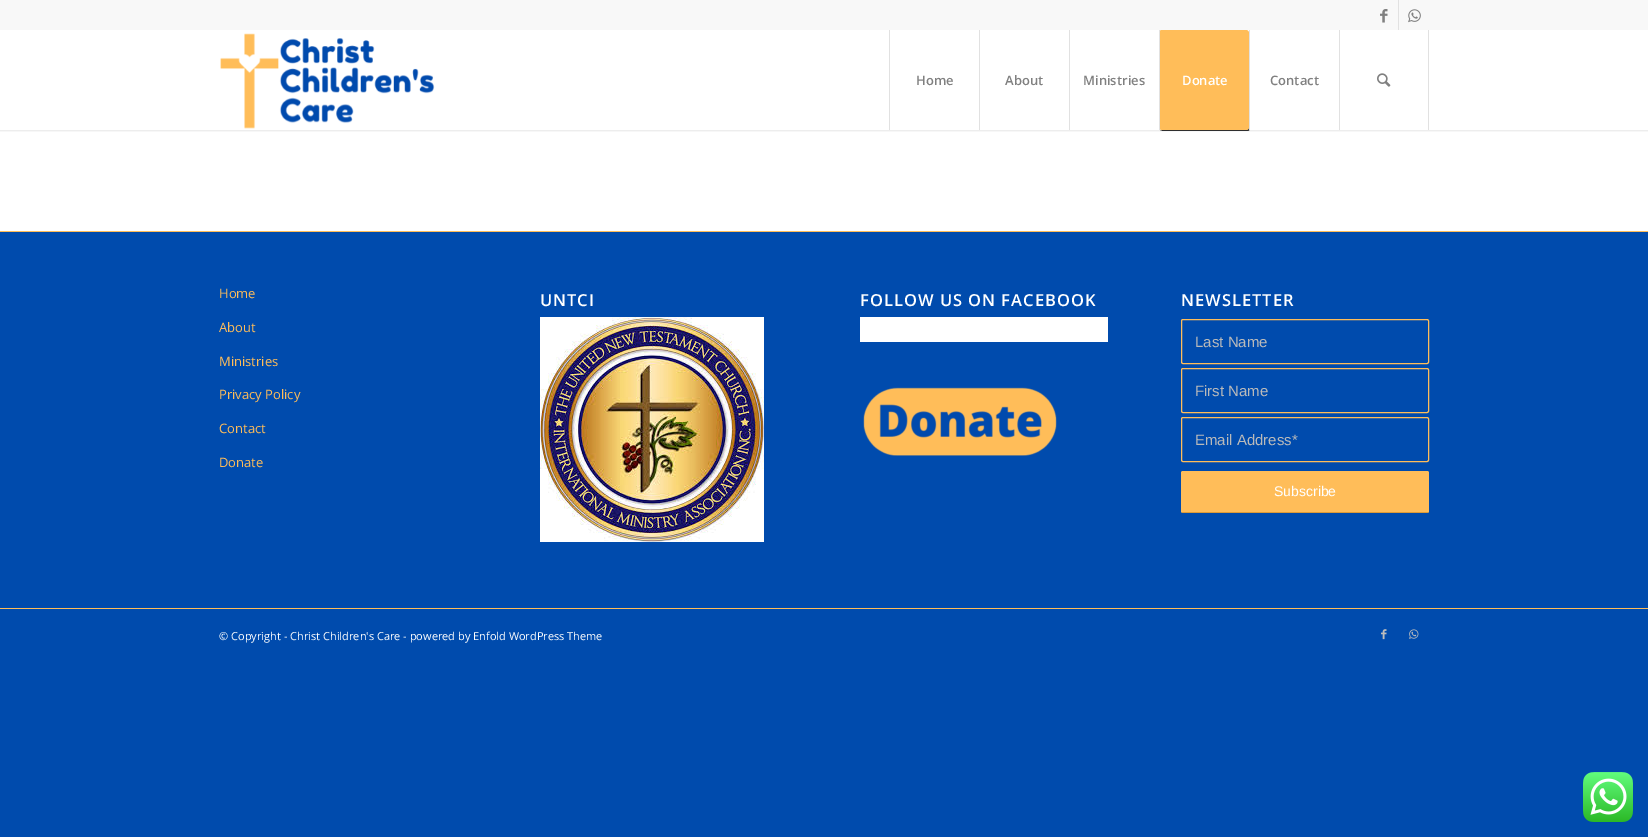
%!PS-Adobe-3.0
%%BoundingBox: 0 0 1648 837
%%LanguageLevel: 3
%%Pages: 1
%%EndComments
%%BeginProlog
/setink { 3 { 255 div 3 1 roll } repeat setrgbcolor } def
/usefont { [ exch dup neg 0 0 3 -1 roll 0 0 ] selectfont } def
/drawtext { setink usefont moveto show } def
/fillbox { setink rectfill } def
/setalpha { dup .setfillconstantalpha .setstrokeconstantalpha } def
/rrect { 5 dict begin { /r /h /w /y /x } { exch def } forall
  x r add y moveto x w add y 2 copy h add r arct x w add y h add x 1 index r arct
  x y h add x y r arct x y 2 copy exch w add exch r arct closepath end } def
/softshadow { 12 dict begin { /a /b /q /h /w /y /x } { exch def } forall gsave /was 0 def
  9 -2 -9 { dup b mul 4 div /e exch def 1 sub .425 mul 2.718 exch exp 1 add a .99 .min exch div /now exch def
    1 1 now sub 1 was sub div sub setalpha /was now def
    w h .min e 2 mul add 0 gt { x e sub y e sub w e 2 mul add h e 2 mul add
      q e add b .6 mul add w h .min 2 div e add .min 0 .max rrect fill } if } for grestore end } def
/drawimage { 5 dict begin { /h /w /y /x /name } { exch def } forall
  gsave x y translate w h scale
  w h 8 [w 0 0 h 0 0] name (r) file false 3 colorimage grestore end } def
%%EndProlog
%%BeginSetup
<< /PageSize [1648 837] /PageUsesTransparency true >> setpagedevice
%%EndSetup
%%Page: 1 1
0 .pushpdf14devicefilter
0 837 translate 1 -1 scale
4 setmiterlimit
0 0 1648 837 0 75 173 fillbox
0 30 1648 201 255 255 255 fillbox
gsave
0 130 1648 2 rectclip
0 0 0 setink
-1 -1 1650 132 0 1 0.1 softshadow
grestore
0 0 1648 30 248 248 248 fillbox
1398 0 1 30 225 225 225 fillbox
(assets/img1.rgb) 1380 9 8 14 drawimage
(assets/img2.rgb) 1408 9 13 14 drawimage
(assets/img3.rgb) 220 33 215 96 drawimage
889 30 1 100 225 225 225 fillbox
(Home) 916 85 /OpenSans-SemiBold 13 128 128 128 drawtext
979 30 1 100 225 225 225 fillbox
(About) 1005 85 /OpenSans-SemiBold 13 128 128 128 drawtext
1069 30 1 100 225 225 225 fillbox
(Ministries) 1083 85 /OpenSans-SemiBold 13 128 128 128 drawtext
47 47 47 setink
1160 130 moveto 1161 130 1162 131 1163 131 curveto 1247 131 lineto 1249 131 1250 130 1250 128 curveto 1250 34 lineto 1250 33 1249 32 1249 31 curveto 1249 33 lineto 1249 127 lineto 1249 129 1248 130 1246 130 curveto 1162 130 lineto closepath fill
255 189 89 setink
1159 30 90 100 3 rrect fill
1159 30 1 100 225 225 225 fillbox
(Donate) 1182 85 /OpenSans-SemiBold 13 255 255 255 drawtext
1249 30 1 100 225 225 225 fillbox
(Contact) 1270 85 /OpenSans-SemiBold 13 128 128 128 drawtext
1428 30 1 100 225 225 225 fillbox
1339 30 1 100 225 225 225 fillbox
(assets/img4.rgb) 1377 73 14 14 drawimage
0 231 1648 1 255 189 89 fillbox
(Home) 219 298 /OpenSans-Regular 13 255 189 89 drawtext
(About) 219 332 /OpenSans-Regular 13 255 189 89 drawtext
(Ministries) 219 366 /OpenSans-Regular 13 255 189 89 drawtext
(Privacy Policy) 219 399 /OpenSans-Regular 13 255 189 89 drawtext
(Contact) 219 433 /OpenSans-Regular 13 255 189 89 drawtext
(Donate) 219 467 /OpenSans-Regular 13 255 189 89 drawtext
/OpenSans-SemiBold 16.5 usefont
255 255 255 setink
540 306 moveto 1 0 (UNTCI) ashow
(assets/img5.rgb) 540 317 224 225 drawimage
860 306 moveto 1 0 (FOLLOW US ON FACEBOOK) ashow
860 317 248 25 255 255 255 fillbox
(assets/img6.rgb) 863 387 194 69 drawimage
1181 306 moveto 1 0 (NEWSLETTER) ashow
255 189 89 setink
1181.5 319.5 247 44 1.5 rrect stroke
(Last Name) 1195 347 /LiberationSans-Regular 15 186 186 186 drawtext
255 189 89 setink
1181.5 368.5 247 44 1.5 rrect stroke
(First Name) 1195 396 /LiberationSans-Regular 15 186 186 186 drawtext
255 189 89 setink
1181.5 417.5 247 44 1.5 rrect stroke
(Email Address*) 1195 445 /LiberationSans-Regular 15 186 186 186 drawtext
255 189 89 setink
1181 471 248 42 2 rrect fill
1182 512 246 1 221 155 55 fillbox
(Subscribe) 1274 496 /LiberationSans-Regular 14 255 255 255 drawtext
0 608 1648 1 255 189 89 fillbox
(© Copyright - Christ Children's Care - powered by Enfold WordPress Theme) 219 640 /OpenSans-Regular 11 255 255 255 drawtext
(assets/img7.rgb) 1381 629 6 11 drawimage
(assets/img8.rgb) 1409 629 10 10 drawimage
(assets/img9.rgb) 1583 772 50 50 drawimage
.poppdf14devicefilter showpage
%%EOF
